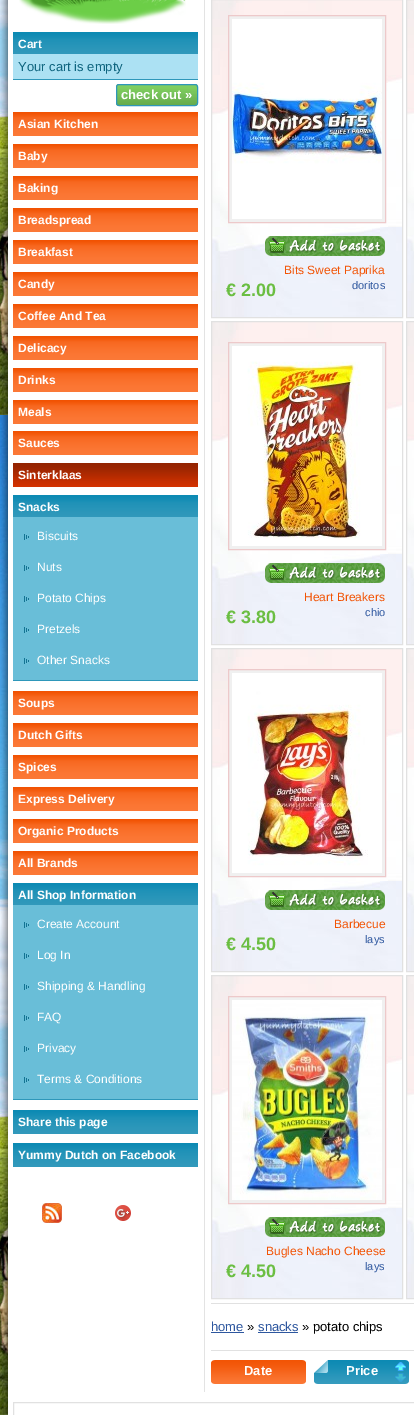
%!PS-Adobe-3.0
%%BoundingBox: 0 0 414 1415
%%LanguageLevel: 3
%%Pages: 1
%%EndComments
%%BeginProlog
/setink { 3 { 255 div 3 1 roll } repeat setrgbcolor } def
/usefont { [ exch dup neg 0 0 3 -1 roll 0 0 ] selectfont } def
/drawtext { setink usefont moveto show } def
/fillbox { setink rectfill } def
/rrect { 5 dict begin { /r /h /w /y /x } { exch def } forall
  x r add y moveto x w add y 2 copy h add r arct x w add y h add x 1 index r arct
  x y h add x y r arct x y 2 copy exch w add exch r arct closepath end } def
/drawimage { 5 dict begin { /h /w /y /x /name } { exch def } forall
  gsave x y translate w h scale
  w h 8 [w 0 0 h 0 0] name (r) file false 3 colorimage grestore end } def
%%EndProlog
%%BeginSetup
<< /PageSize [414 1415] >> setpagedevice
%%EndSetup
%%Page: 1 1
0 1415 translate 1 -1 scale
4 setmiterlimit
0 0 414 1415 255 255 255 fillbox
(assets/img1.rgb) 0 0 8 1415 drawimage
(assets/img2.rgb) 1 0 7 1415 drawimage
(assets/img3.rgb) 19 0 167 24 drawimage
(assets/img4.rgb) 13 32 185 22 drawimage
(Cart) 18 48 /LiberationSans-Bold 12 255 255 255 drawtext
13 54 185 25 172 225 243 fillbox
13 79 185 1 46 151 186 fillbox
(Your cart is empty) 18 71 /LiberationSans-Regular 13 15 101 127 drawtext
(assets/img5.rgb) 116 84 82 22 drawimage
46 151 186 setink
116.5 84.5 81 21 2.5 rrect stroke
(check out ») 121 99 /LiberationSans-Bold 13 255 255 255 drawtext
(assets/img6.rgb) 13 112 185 24 drawimage
(Asian Kitchen) 18 128 /LiberationSans-Bold 12 255 255 255 drawtext
(assets/img6.rgb) 13 144 185 24 drawimage
(Baby) 18 160 /LiberationSans-Bold 12 255 255 255 drawtext
(assets/img6.rgb) 13 176 185 24 drawimage
(Baking) 18 192 /LiberationSans-Bold 12 255 255 255 drawtext
(assets/img6.rgb) 13 208 185 24 drawimage
(Breadspread) 18 224 /LiberationSans-Bold 12 255 255 255 drawtext
(assets/img6.rgb) 13 240 185 24 drawimage
(Breakfast) 18 256 /LiberationSans-Bold 12 255 255 255 drawtext
(assets/img6.rgb) 13 272 185 24 drawimage
(Candy) 18 288 /LiberationSans-Bold 12 255 255 255 drawtext
(assets/img6.rgb) 13 304 185 24 drawimage
(Coffee And Tea) 18 320 /LiberationSans-Bold 12 255 255 255 drawtext
(assets/img6.rgb) 13 336 185 24 drawimage
(Delicacy) 18 352 /LiberationSans-Bold 12 255 255 255 drawtext
(assets/img6.rgb) 13 368 185 24 drawimage
(Drinks) 18 384 /LiberationSans-Bold 12 255 255 255 drawtext
(assets/img6.rgb) 13 400 185 24 drawimage
(Meals) 18 416 /LiberationSans-Bold 12 255 255 255 drawtext
(assets/img6.rgb) 13 431 185 24 drawimage
(Sauces) 18 447 /LiberationSans-Bold 12 255 255 255 drawtext
(assets/img7.rgb) 13 463 185 24 drawimage
(Sinterklaas) 18 479 /LiberationSans-Bold 12 255 255 255 drawtext
(assets/img4.rgb) 13 495 185 22 drawimage
(Snacks) 18 511 /LiberationSans-Bold 12 255 255 255 drawtext
13 517 185 163 105 190 216 fillbox
13 680 185 1 46 151 186 fillbox
(assets/img8.rgb) 24 534 5 6 drawimage
(Biscuits) 37 540 /LiberationSans-Regular 12 255 255 255 drawtext
(assets/img8.rgb) 24 565 5 6 drawimage
(Nuts) 37 571 /LiberationSans-Regular 12 255 255 255 drawtext
(assets/img8.rgb) 24 596 5 6 drawimage
(Potato Chips) 37 602 /LiberationSans-Regular 12 255 255 255 drawtext
(assets/img8.rgb) 24 627 5 6 drawimage
(Pretzels) 37 633 /LiberationSans-Regular 12 255 255 255 drawtext
(assets/img8.rgb) 24 658 5 6 drawimage
(Other Snacks) 37 664 /LiberationSans-Regular 12 255 255 255 drawtext
(assets/img6.rgb) 13 691 185 24 drawimage
(Soups) 18 707 /LiberationSans-Bold 12 255 255 255 drawtext
(assets/img6.rgb) 13 723 185 24 drawimage
(Dutch Gifts) 18 739 /LiberationSans-Bold 12 255 255 255 drawtext
(assets/img6.rgb) 13 755 185 24 drawimage
(Spices) 18 771 /LiberationSans-Bold 12 255 255 255 drawtext
(assets/img6.rgb) 13 787 185 24 drawimage
(Express Delivery) 18 803 /LiberationSans-Bold 12 255 255 255 drawtext
(assets/img6.rgb) 13 819 185 24 drawimage
(Organic Products) 18 835 /LiberationSans-Bold 12 255 255 255 drawtext
(assets/img6.rgb) 13 851 185 24 drawimage
(All Brands) 18 867 /LiberationSans-Bold 12 255 255 255 drawtext
(assets/img4.rgb) 13 883 185 22 drawimage
(All Shop Information) 18 899 /LiberationSans-Bold 12 255 255 255 drawtext
13 905 185 194 105 190 216 fillbox
13 1099 185 1 46 151 186 fillbox
(assets/img8.rgb) 24 922 5 6 drawimage
(Create Account) 37 928 /LiberationSans-Regular 12 255 255 255 drawtext
(assets/img8.rgb) 24 953 5 6 drawimage
(Log In) 37 959 /LiberationSans-Regular 12 255 255 255 drawtext
(assets/img8.rgb) 24 984 5 6 drawimage
(Shipping & Handling) 37 990 /LiberationSans-Regular 12 255 255 255 drawtext
(assets/img8.rgb) 24 1015 5 6 drawimage
(FAQ) 37 1021 /LiberationSans-Regular 12 255 255 255 drawtext
(assets/img8.rgb) 24 1046 5 6 drawimage
(Privacy) 37 1052 /LiberationSans-Regular 12 255 255 255 drawtext
(assets/img8.rgb) 24 1077 5 6 drawimage
(Terms & Conditions) 37 1083 /LiberationSans-Regular 12 255 255 255 drawtext
(assets/img9.rgb) 13 1110 185 24 drawimage
(Share this page) 18 1126 /LiberationSans-Bold 12 255 255 255 drawtext
(assets/img9.rgb) 13 1143 185 24 drawimage
(Yummy Dutch on Facebook) 18 1159 /LiberationSans-Bold 12 255 255 255 drawtext
(assets/img10.rgb) 42 1203 20 20 drawimage
(assets/img11.rgb) 115 1205 16 16 drawimage
204 0 1 1392 227 227 227 fillbox
(assets/img12.rgb) 212 0 190 317 drawimage
225 225 225 setink
211.5 -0.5 191 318 rectstroke
240 240 240 setink
228.5 15.5 moveto 385.5 15.5 lineto 385.5 222.5 lineto 228.5 222.5 lineto closepath gsave fill grestore
237 201 202 setink
stroke
(assets/img13.rgb) 232 19 150 200 drawimage
(assets/img14.rgb) 265 236 120 20 drawimage
(€ 2.00) 226 296 /LiberationSans-Bold 18 107 190 66 drawtext
(Bits Sweet Paprika) 284 274 /LiberationSans-Regular 12 242 84 5 drawtext
(doritos) 352 289 /LiberationSans-Regular 11 46 87 159 drawtext
(assets/img15.rgb) 407 0 7 317 drawimage
225 225 225 setink
406.5 -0.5 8 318 rectstroke
(assets/img16.rgb) 212 322 190 322 drawimage
211.5 321.5 191 323 rectstroke
240 240 240 setink
228.5 342.5 moveto 385.5 342.5 lineto 385.5 549.5 lineto 228.5 549.5 lineto closepath gsave fill grestore
237 201 202 setink
stroke
(assets/img17.rgb) 232 346 150 200 drawimage
(assets/img14.rgb) 265 563 120 20 drawimage
(€ 3.80) 226 623 /LiberationSans-Bold 18 107 190 66 drawtext
(Heart Breakers) 304 601 /LiberationSans-Regular 12 242 84 5 drawtext
(chio) 365 616 /LiberationSans-Regular 11 46 87 159 drawtext
(assets/img18.rgb) 407 322 7 322 drawimage
225 225 225 setink
406.5 321.5 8 323 rectstroke
(assets/img16.rgb) 212 649 190 322 drawimage
211.5 648.5 191 323 rectstroke
240 240 240 setink
228.5 669.5 moveto 385.5 669.5 lineto 385.5 876.5 lineto 228.5 876.5 lineto closepath gsave fill grestore
237 201 202 setink
stroke
(assets/img19.rgb) 232 673 150 200 drawimage
(assets/img14.rgb) 265 890 120 20 drawimage
(€ 4.50) 226 950 /LiberationSans-Bold 18 107 190 66 drawtext
(Barbecue) 334 928 /LiberationSans-Regular 12 242 84 5 drawtext
(lays) 365 943 /LiberationSans-Regular 11 46 87 159 drawtext
(assets/img18.rgb) 407 649 7 322 drawimage
225 225 225 setink
406.5 648.5 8 323 rectstroke
(assets/img16.rgb) 212 976 190 322 drawimage
211.5 975.5 191 323 rectstroke
240 240 240 setink
228.5 996.5 moveto 385.5 996.5 lineto 385.5 1203.5 lineto 228.5 1203.5 lineto closepath gsave fill grestore
237 201 202 setink
stroke
(assets/img20.rgb) 232 1000 150 200 drawimage
(assets/img14.rgb) 265 1217 120 20 drawimage
(€ 4.50) 226 1277 /LiberationSans-Bold 18 107 190 66 drawtext
(Bugles Nacho Cheese) 266 1255 /LiberationSans-Regular 12 242 84 5 drawtext
(lays) 365 1270 /LiberationSans-Regular 11 46 87 159 drawtext
(assets/img18.rgb) 407 976 7 322 drawimage
225 225 225 setink
406.5 975.5 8 323 rectstroke
211 1303 203 1 225 225 225 fillbox
(home) 211 1331 /LiberationSans-Regular 13 46 87 159 drawtext
211 1332 33 1 46 87 159 fillbox
(») 247 1331 /LiberationSans-Regular 13 0 0 0 drawtext
(snacks) 258 1331 /LiberationSans-Regular 13 46 87 159 drawtext
258 1332 40 1 46 87 159 fillbox
(» potato chips) 302 1331 /LiberationSans-Regular 13 0 0 0 drawtext
211 1350 203 1 225 225 225 fillbox
(assets/img21.rgb) 211 1360 95 24 drawimage
(Date) 244 1375 /LiberationSans-Bold 13 255 255 255 drawtext
(assets/img22.rgb) 314 1360 95 24 drawimage
(Price) 346 1375 /LiberationSans-Bold 13 255 255 255 drawtext
225 225 225 setink
13.5 1402.5 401 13 rectstroke
showpage
%%EOF
